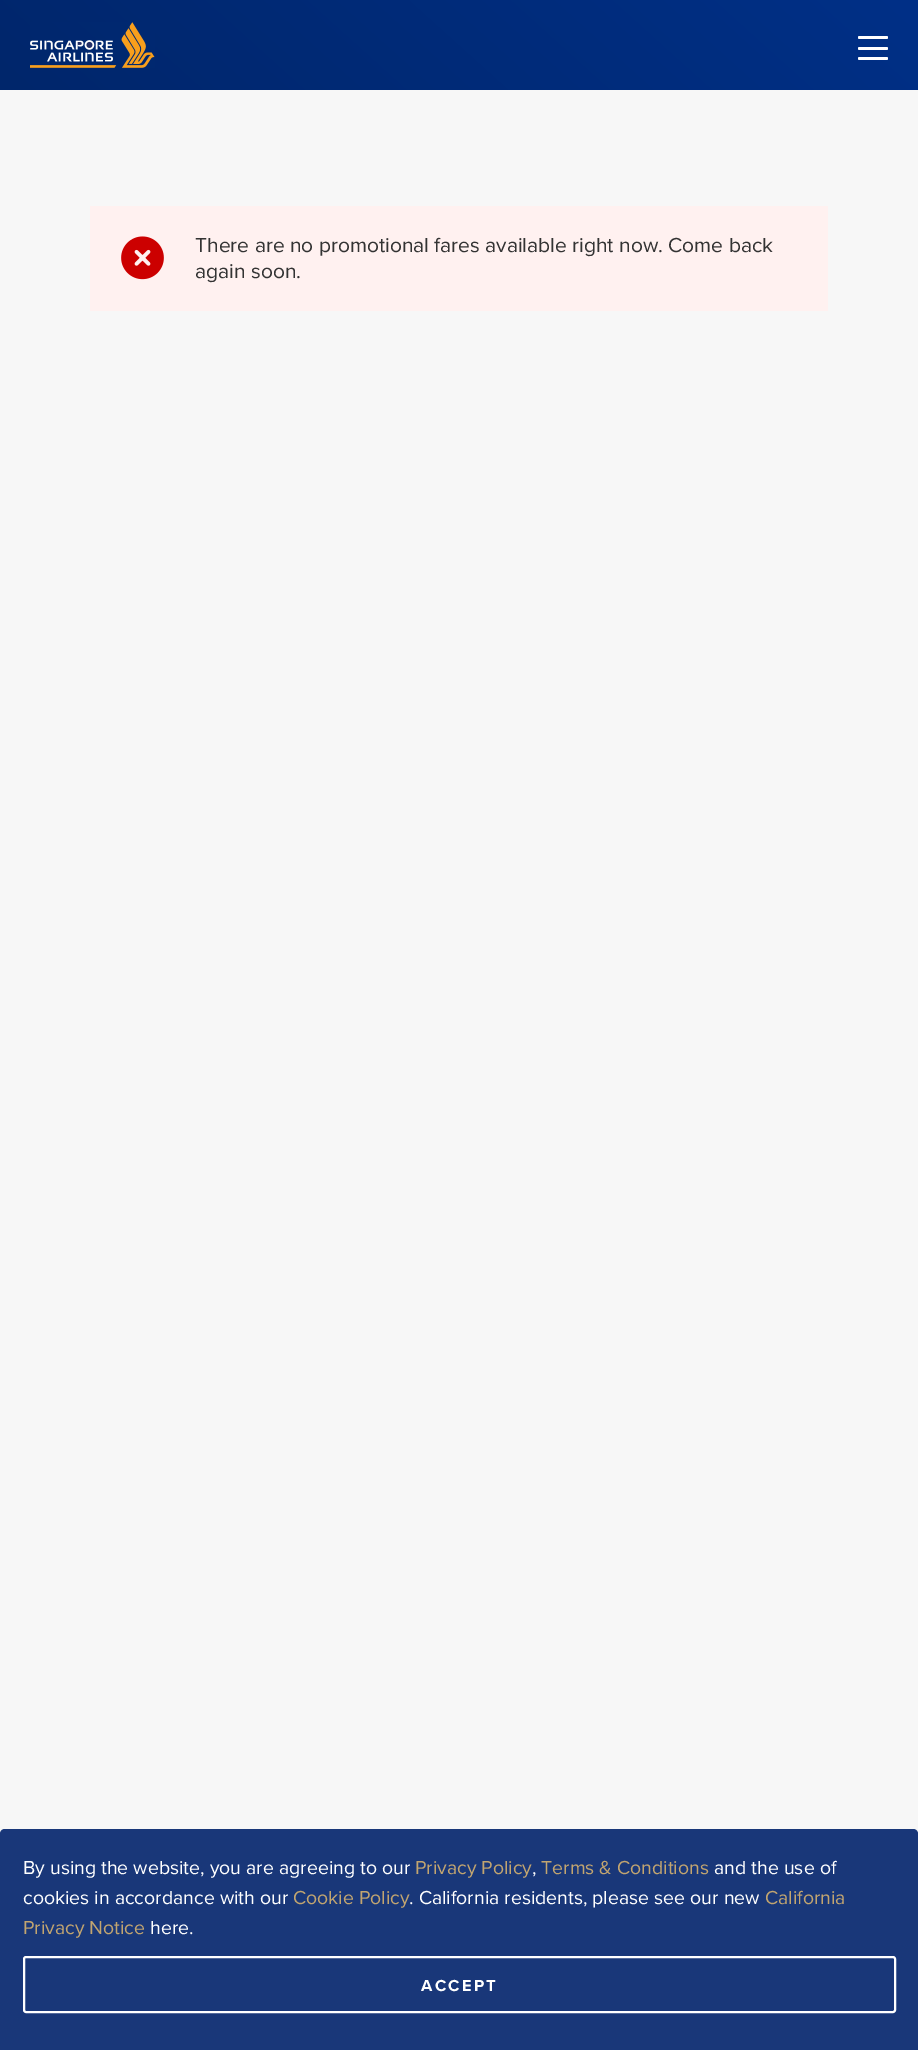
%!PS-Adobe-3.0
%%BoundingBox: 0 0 918 2050
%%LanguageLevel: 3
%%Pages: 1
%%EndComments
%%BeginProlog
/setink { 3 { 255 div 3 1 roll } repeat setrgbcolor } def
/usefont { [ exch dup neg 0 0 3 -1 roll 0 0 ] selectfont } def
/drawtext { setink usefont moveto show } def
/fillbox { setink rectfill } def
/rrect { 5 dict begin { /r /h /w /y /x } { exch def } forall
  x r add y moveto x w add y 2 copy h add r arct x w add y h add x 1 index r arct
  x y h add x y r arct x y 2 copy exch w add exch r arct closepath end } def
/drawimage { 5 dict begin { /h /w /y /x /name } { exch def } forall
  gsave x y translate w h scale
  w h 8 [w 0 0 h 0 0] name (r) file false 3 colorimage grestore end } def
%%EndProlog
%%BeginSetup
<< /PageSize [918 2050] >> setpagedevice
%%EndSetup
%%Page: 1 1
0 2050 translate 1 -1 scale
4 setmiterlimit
0 0 918 2050 247 247 247 fillbox
90 206 738 105 255 241 240 fillbox
(assets/img1.rgb) 121 236 43 44 drawimage
(There are no promotional fares available right now. Come back) 195 252 /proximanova-Regular 21 51 51 51 drawtext
(again soon.) 195 278 /proximanova-Regular 21 51 51 51 drawtext
gsave 0 0 moveto 918 0 lineto 918 90 lineto 0 90 lineto closepath clip newpath
<< /ShadingType 2 /ColorSpace /DeviceRGB /Coords [687 -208 231 298] /Extend [true true] /Function << /FunctionType 2 /Domain [0 1] /C0 [0 0.188 0.529] /C1 [0 0.149 0.42] /N 1 >> >> shfill grestore
(assets/img2.rgb) 30 22 125 46 drawimage
255 255 255 setink
858 47 30 3 1.5 rrect fill
858 36 30 3 1.5 rrect fill
858 57 30 3 1.5 rrect fill
25 55 121 setink
5 1829 moveto 913 1829 lineto 916 1829 918 1831 918 1834 curveto 918 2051 lineto 0 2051 lineto 0 1834 lineto 0 1831 2 1829 5 1829 curveto closepath fill
(By using the website, you are agreeing to our) 23 1874 /proximanova-Regular 19.5 255 255 255 drawtext
(Privacy Policy) 415 1874 /proximanova-Regular 19.5 194 165 112 drawtext
(,) 532 1874 /proximanova-Regular 19.5 255 255 255 drawtext
(Terms & Conditions) 541 1874 /proximanova-Regular 19.5 194 165 112 drawtext
(and the use of) 714 1874 /proximanova-Regular 19.5 255 255 255 drawtext
(cookies in accordance with our) 23 1904 /proximanova-Regular 19.5 255 255 255 drawtext
(Cookie Policy) 293 1904 /proximanova-Regular 19.5 194 165 112 drawtext
(. California residents, please see our new) 409 1904 /proximanova-Regular 19.5 255 255 255 drawtext
(California) 765 1904 /proximanova-Regular 19.5 194 165 112 drawtext
(Privacy Notice) 23 1934 /proximanova-Regular 19.5 194 165 112 drawtext
(here.) 150 1934 /proximanova-Regular 19.5 255 255 255 drawtext
2 setlinewidth
24 1957 871 55 2 rrect stroke
/ProximaNova-Bold 16.5 usefont
421 1991 moveto 2.25 0 (ACCEPT) ashow
showpage
%%EOF
